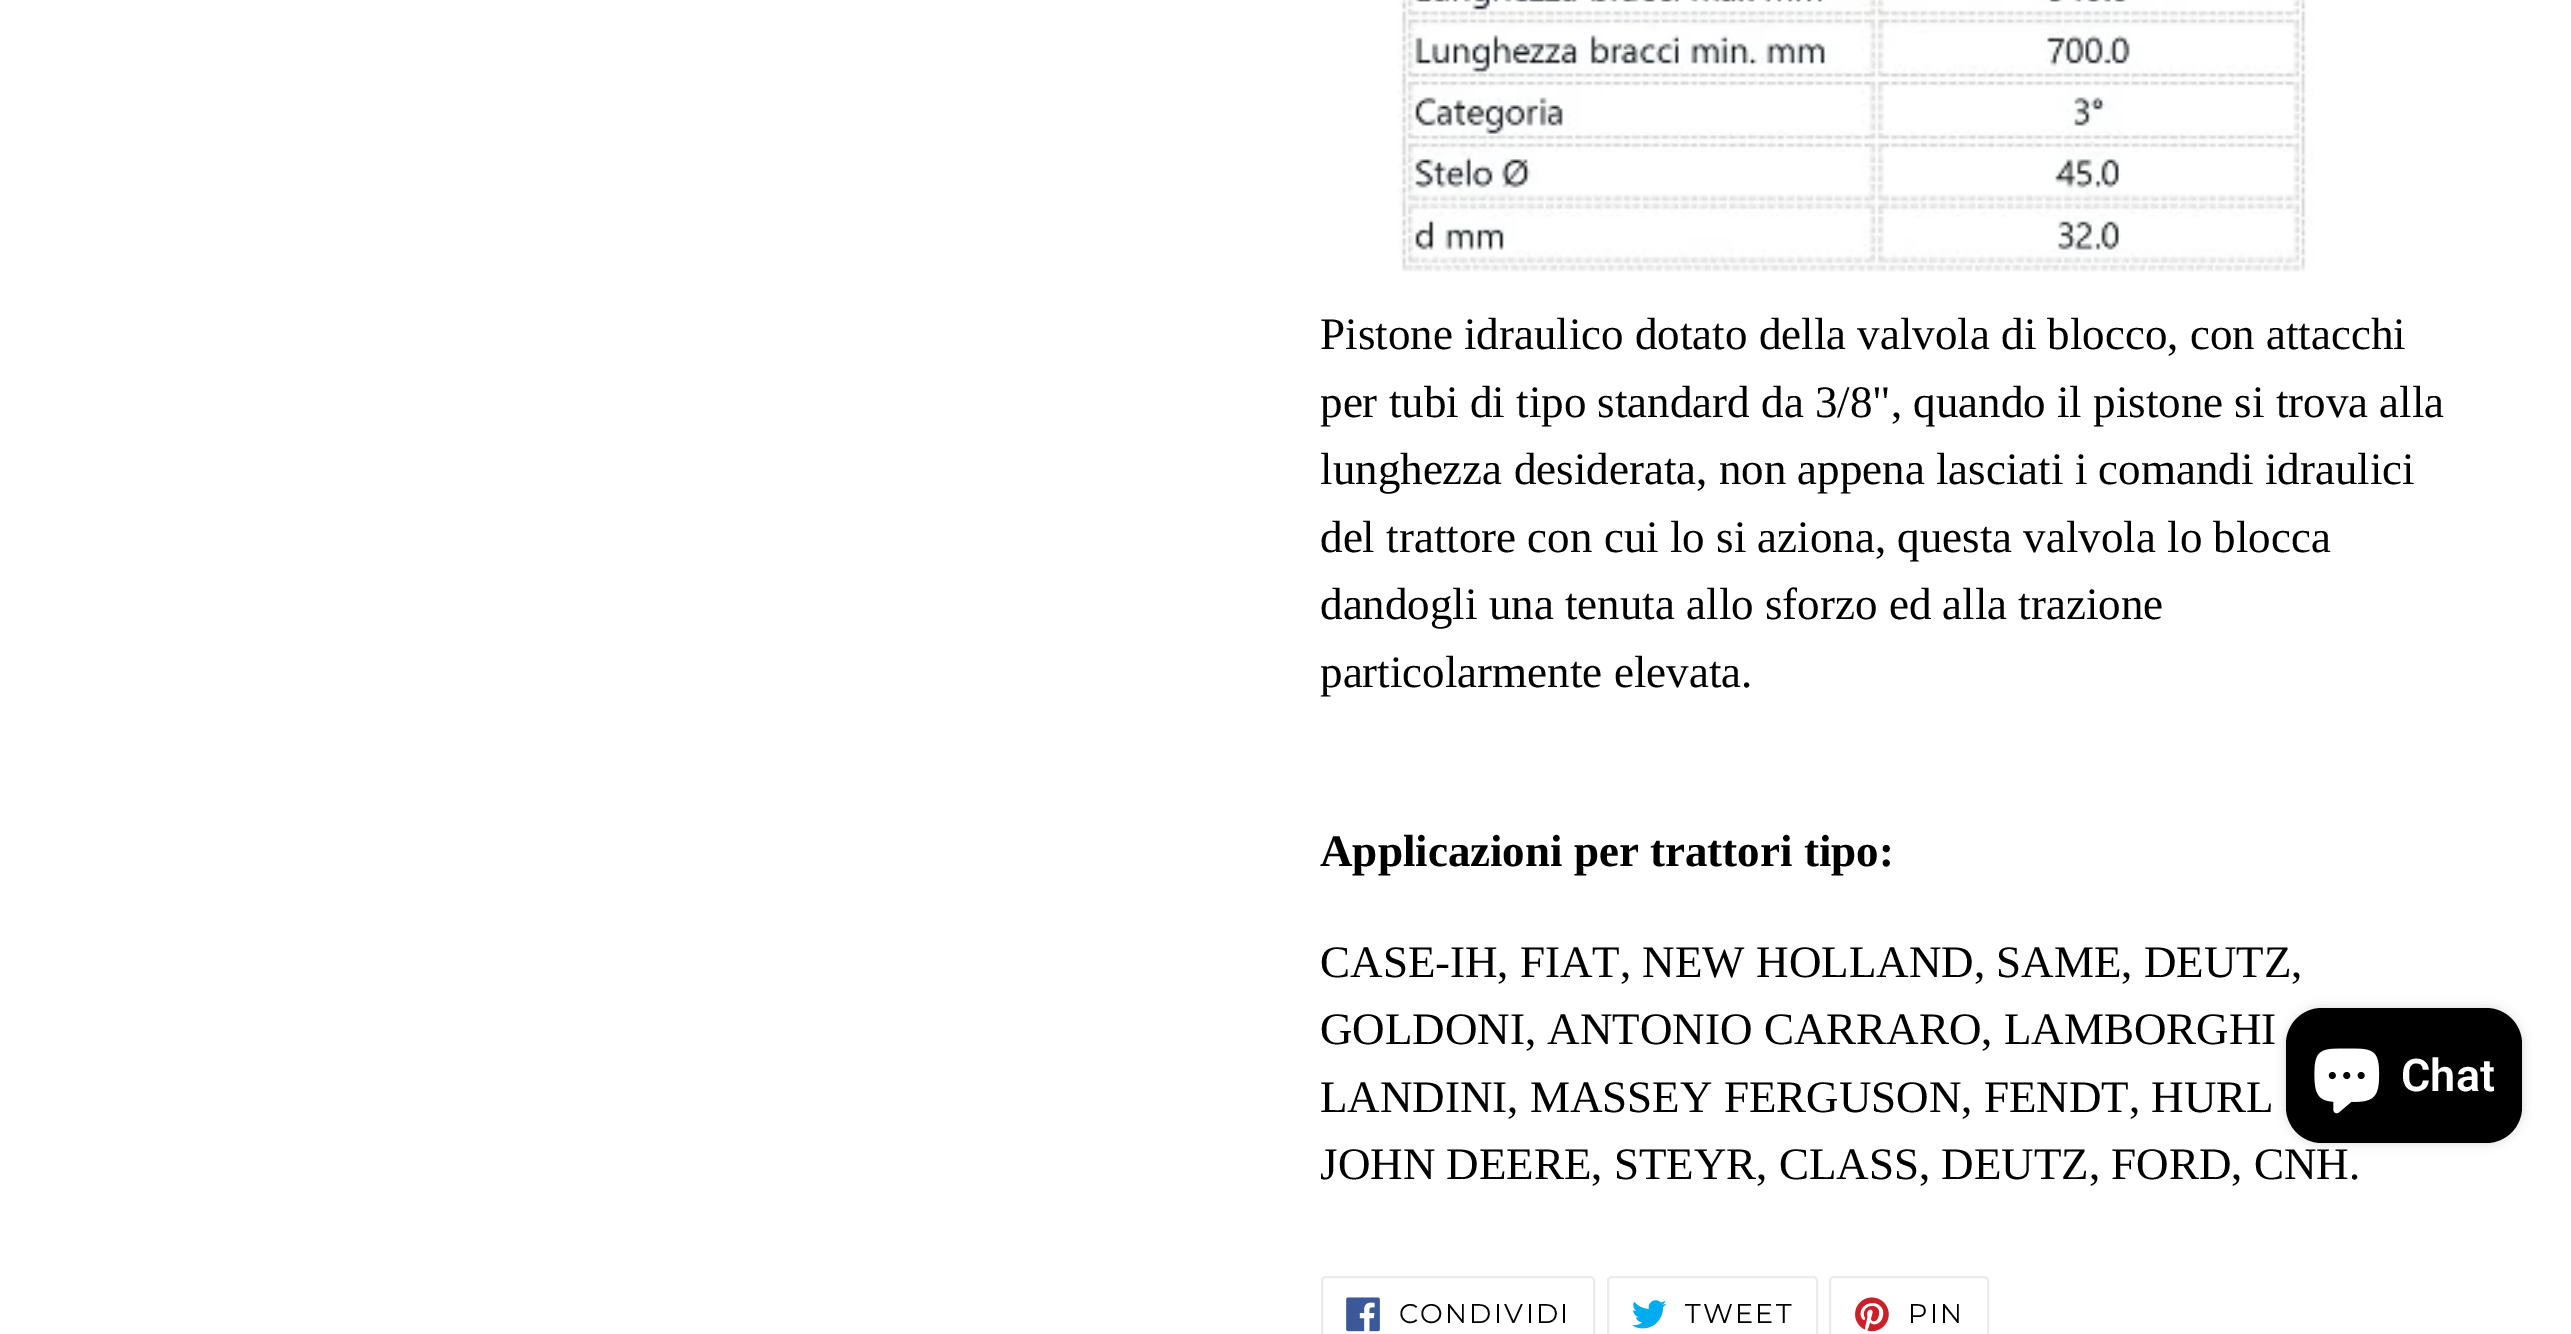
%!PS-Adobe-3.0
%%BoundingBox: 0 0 2571 1334
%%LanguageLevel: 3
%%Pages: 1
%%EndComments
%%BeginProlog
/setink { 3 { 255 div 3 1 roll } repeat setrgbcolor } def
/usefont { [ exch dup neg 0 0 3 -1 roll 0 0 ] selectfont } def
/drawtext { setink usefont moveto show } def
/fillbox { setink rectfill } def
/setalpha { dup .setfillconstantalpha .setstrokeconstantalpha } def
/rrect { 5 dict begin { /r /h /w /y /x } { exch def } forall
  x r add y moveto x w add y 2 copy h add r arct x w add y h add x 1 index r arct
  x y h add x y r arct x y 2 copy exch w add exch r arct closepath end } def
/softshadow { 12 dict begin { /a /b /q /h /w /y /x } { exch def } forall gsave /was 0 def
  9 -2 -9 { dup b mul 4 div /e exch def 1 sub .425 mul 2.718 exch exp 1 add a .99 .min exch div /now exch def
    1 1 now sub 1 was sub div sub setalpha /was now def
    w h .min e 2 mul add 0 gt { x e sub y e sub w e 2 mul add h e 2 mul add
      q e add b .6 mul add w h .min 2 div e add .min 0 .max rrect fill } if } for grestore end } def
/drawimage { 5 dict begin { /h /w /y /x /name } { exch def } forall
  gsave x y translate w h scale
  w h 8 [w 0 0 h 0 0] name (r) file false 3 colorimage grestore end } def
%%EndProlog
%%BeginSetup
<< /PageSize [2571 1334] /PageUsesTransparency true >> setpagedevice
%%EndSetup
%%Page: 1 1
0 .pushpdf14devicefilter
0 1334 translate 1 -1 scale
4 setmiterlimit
0 0 2571 1334 255 255 255 fillbox
(assets/img1.rgb) 1398 0 916 272 drawimage
(Pistone idraulico dotato della valvola di blocco, con attacchi) 1320 349 /LiberationSerif-Regular 45 0 0 0 drawtext
(per tubi di tipo standard da 3/8", quando il pistone si trova alla) 1320 417 /LiberationSerif-Regular 45 0 0 0 drawtext
(lunghezza desiderata, non appena lasciati i comandi idraulici) 1320 484 /LiberationSerif-Regular 45 0 0 0 drawtext
(del trattore con cui lo si aziona, questa valvola lo blocca) 1320 552 /LiberationSerif-Regular 45 0 0 0 drawtext
(dandogli una tenuta allo sforzo ed alla trazione) 1320 619 /LiberationSerif-Regular 45 0 0 0 drawtext
(particolarmente elevata.) 1320 687 /LiberationSerif-Regular 45 0 0 0 drawtext
(Applicazioni per trattori tipo:) 1320 866 /LiberationSerif-Bold 45 0 0 0 drawtext
(CASE-IH, FIAT, NEW HOLLAND, SAME, DEUTZ,) 1320 977 /LiberationSerif-Regular 45 0 0 0 drawtext
(GOLDONI, ANTONIO CARRARO, LAMBORGHI) 1320 1044 /LiberationSerif-Regular 45 0 0 0 drawtext
(LANDINI, MASSEY FERGUSON, FENDT, HURL) 1320 1112 /LiberationSerif-Regular 45 0 0 0 drawtext
(JOHN DEERE, STEYR, CLASS, DEUTZ, FORD, CNH.) 1320 1179 /LiberationSerif-Regular 45 0 0 0 drawtext
235 235 235 setink
2 setlinewidth
1322 1277 272 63 4 rrect stroke
(assets/img2.rgb) 1346 1297 34 35 drawimage
/Montserrat-Regular 27 usefont
0 0 0 setink
1399 1323 moveto 2.25 0 (CONDIVIDI) ashow
235 235 235 setink
1608 1277 209 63 4 rrect stroke
(assets/img3.rgb) 1632 1300 35 29 drawimage
0 0 0 setink
1685 1323 moveto 2.25 0 (TWEET) ashow
235 235 235 setink
1830 1277 158 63 4 rrect stroke
(assets/img4.rgb) 1855 1297 34 35 drawimage
0 0 0 setink
1908 1323 moveto 2.25 0 (PIN) ashow
2286 1008 236 135 36 5.5 0.15 softshadow
2286 1008 236 135 36 rrect fill
(assets/img5.rgb) 2314 1048 66 66 drawimage
(Chat) 2401 1091 /Roboto-SemiBold 45 255 255 255 drawtext
.poppdf14devicefilter showpage
%%EOF
